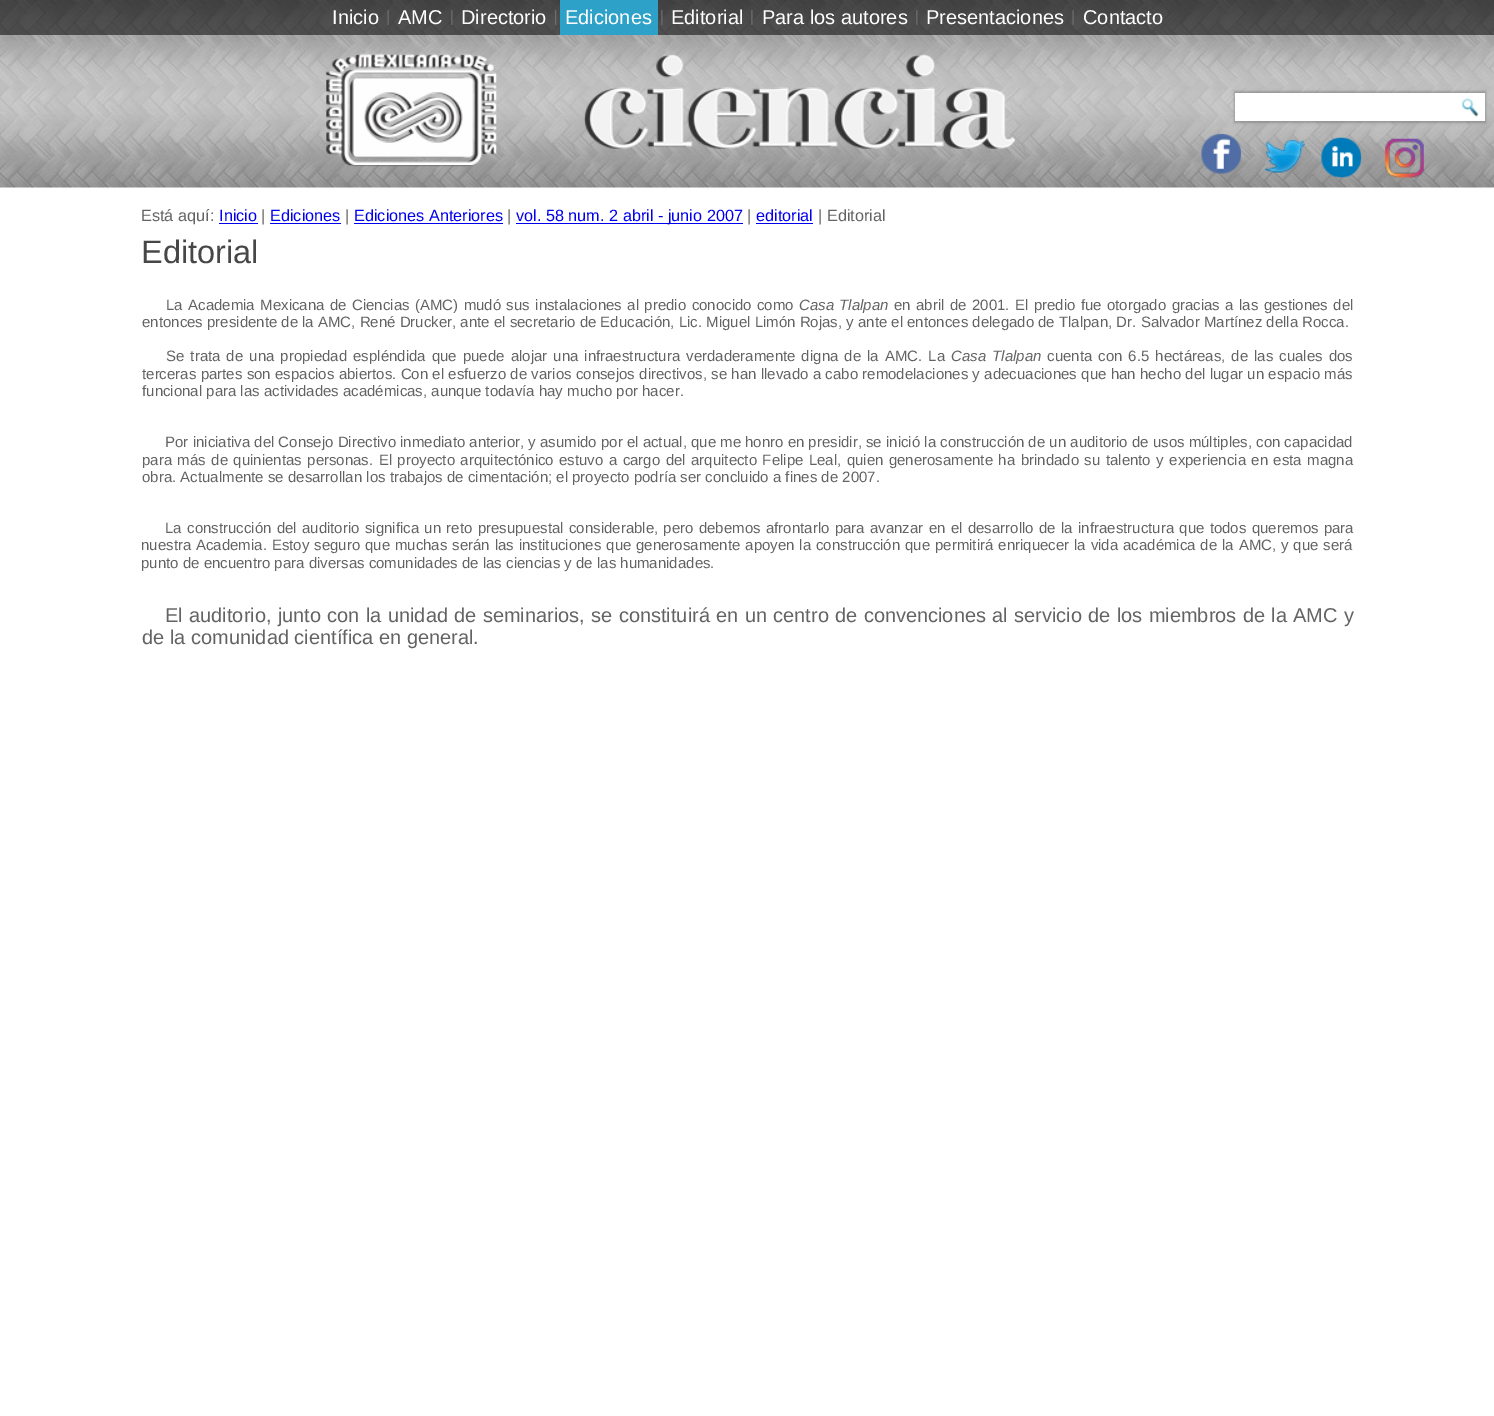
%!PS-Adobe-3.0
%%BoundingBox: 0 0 1494 1416
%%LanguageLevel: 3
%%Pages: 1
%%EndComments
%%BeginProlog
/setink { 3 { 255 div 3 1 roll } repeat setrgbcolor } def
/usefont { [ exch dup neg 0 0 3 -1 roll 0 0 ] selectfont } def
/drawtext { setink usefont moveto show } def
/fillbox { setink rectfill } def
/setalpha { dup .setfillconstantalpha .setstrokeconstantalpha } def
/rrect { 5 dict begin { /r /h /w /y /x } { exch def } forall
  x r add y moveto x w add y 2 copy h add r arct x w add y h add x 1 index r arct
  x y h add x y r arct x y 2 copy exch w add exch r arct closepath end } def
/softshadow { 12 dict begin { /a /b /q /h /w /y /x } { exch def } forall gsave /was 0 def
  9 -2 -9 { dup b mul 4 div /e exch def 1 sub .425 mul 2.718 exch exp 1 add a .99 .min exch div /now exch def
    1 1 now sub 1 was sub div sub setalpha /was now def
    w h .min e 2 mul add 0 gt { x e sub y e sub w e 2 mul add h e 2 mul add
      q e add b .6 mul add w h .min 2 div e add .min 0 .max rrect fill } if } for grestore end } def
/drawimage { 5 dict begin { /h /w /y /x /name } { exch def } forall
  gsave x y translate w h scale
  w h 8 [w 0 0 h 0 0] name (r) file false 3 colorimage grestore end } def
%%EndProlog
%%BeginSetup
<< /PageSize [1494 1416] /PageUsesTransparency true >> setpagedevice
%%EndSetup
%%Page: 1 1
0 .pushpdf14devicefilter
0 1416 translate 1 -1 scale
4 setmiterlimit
0 0 1494 1416 255 255 255 fillbox
(assets/img1.rgb) 0 0 1494 188 drawimage
0.6 setalpha
0 0 1494 35 18 18 18 fillbox
1 setalpha
(Inicio) 332 24 /LiberationSans-Regular 20 255 255 255 drawtext
(assets/img2.rgb) 387 10 2 15 drawimage
(AMC) 398 24 /LiberationSans-Regular 20 255 255 255 drawtext
(assets/img3.rgb) 451 10 2 15 drawimage
(Directorio) 461 24 /LiberationSans-Regular 20 255 255 255 drawtext
(assets/img4.rgb) 555 10 2 15 drawimage
560 0 98 35 45 161 200 fillbox
(Ediciones) 565 24 /LiberationSans-Regular 20 255 255 255 drawtext
(assets/img5.rgb) 661 10 2 15 drawimage
(Editorial) 671 24 /LiberationSans-Regular 20 255 255 255 drawtext
(assets/img6.rgb) 751 10 2 15 drawimage
(Para los autores) 762 24 /LiberationSans-Regular 20 255 255 255 drawtext
(assets/img7.rgb) 916 10 2 15 drawimage
(Presentaciones) 926 24 /LiberationSans-Regular 20 255 255 255 drawtext
(assets/img8.rgb) 1072 10 2 15 drawimage
(Contacto) 1083 24 /LiberationSans-Regular 20 255 255 255 drawtext
(assets/img10.rgb) 325 54 170 113 drawimage
(assets/img9.rgb) 328 53 169 112 drawimage
(assets/img11.rgb) 583 55 425 94 drawimage
(assets/img12.rgb) 588 54 427 95 drawimage
0 0 0 setink
1234 91 252 32 0 1 0.2 softshadow
1235 93 250 28 255 255 255 fillbox
(assets/img13.rgb) 1461 98 18 19 drawimage
(assets/img14.rgb) 1201 133 41 41 drawimage
(assets/img15.rgb) 1265 139 40 34 drawimage
(assets/img16.rgb) 1321 137 41 41 drawimage
(assets/img17.rgb) 1384 138 40 40 drawimage
(Está aquí:) 141 221 /LiberationSans-Regular 16.25 99 99 99 drawtext
(Inicio) 219 221 /LiberationSans-Regular 16.25 0 0 238 drawtext
219 223 39 1 0 0 238 fillbox
(|) 261 221 /LiberationSans-Regular 16.25 99 99 99 drawtext
(Ediciones) 270 221 /LiberationSans-Regular 16.25 0 0 238 drawtext
270 223 71 1 0 0 238 fillbox
(|) 345 221 /LiberationSans-Regular 16.25 99 99 99 drawtext
(Ediciones Anteriores) 354 221 /LiberationSans-Regular 16.25 0 0 238 drawtext
354 223 149 1 0 0 238 fillbox
(|) 507 221 /LiberationSans-Regular 16.25 99 99 99 drawtext
516 223 227 1 0 0 238 fillbox
(vol. 58 num. 2 abril - junio 2007) 516 221 /LiberationSans-Regular 16.25 0 0 238 drawtext
(|) 747 221 /LiberationSans-Regular 16.25 99 99 99 drawtext
(editorial) 756 221 /LiberationSans-Regular 16.25 0 0 238 drawtext
756 223 57 1 0 0 238 fillbox
(| Editorial) 818 221 /LiberationSans-Regular 16.25 99 99 99 drawtext
(Editorial) 141 263 /LiberationSans-Regular 32.5 71 71 71 drawtext
/LiberationSans-Regular 15 usefont
99 99 99 setink
166 310 moveto 1.25 0 32 (La Academia Mexicana de Ciencias \(AMC\) mudó sus instalaciones al predio conocido como) widthshow
/LiberationSans-Italic 15 usefont
799 310 moveto 1 0 32 (Casa Tlalpan) widthshow
/LiberationSans-Regular 15 usefont
894 310 moveto 1.25 0 32 (en abril de 2001. El predio fue otorgado gracias a las gestiones del) widthshow
(entonces presidente de la AMC, René Drucker, ante el secretario de Educación, Lic. Miguel Limón Rojas, y ante el entonces delegado de Tlalpan, Dr. Salvador Martínez della Rocca.) 142 327 /LiberationSans-Regular 15 99 99 99 drawtext
166 361 moveto 1.9 0 32 (Se trata de una propiedad espléndida que puede alojar una infraestructura verdaderamente digna de la AMC. La) widthshow
/LiberationSans-Italic 15 usefont
951 361 moveto 2 0 32 (Casa Tlalpan) widthshow
/LiberationSans-Regular 15 usefont
1047 361 moveto 1.9 0 32 (cuenta con 6.5 hectáreas, de las cuales dos) widthshow
142 379 moveto 0.2 0 32 (terceras partes son espacios abiertos. Con el esfuerzo de varios consejos directivos, se han llevado a cabo remodelaciones y adecuaciones que han hecho del lugar un espacio más) widthshow
(funcional para las actividades académicas, aunque todavía hay mucho por hacer.) 142 396 /LiberationSans-Regular 15 99 99 99 drawtext
(Por iniciativa del Consejo Directivo inmediato anterior, y asumido por el actual, que me honro en presidir, se inició la construcción de un auditorio de usos múltiples, con capacidad) 165 447 /LiberationSans-Regular 15 99 99 99 drawtext
142 465 moveto 1.3 0 32 (para más de quinientas personas. El proyecto arquitectónico estuvo a cargo del arquitecto Felipe Leal, quien generosamente ha brindado su talento y experiencia en esta magna) widthshow
(obra. Actualmente se desarrollan los trabajos de cimentación; el proyecto podría ser concluido a fines de 2007.) 142 482 /LiberationSans-Regular 15 99 99 99 drawtext
165 533 moveto 1.2 0 32 (La construcción del auditorio significa un reto presupuestal considerable, pero debemos afrontarlo para avanzar en el desarrollo de la infraestructura que todos queremos para) widthshow
141 550 moveto 0.75 0 32 (nuestra Academia. Estoy seguro que muchas serán las instituciones que generosamente apoyen la construcción que permitirá enriquecer la vida académica de la AMC, y que será) widthshow
(punto de encuentro para diversas comunidades de las ciencias y de las humanidades.) 141 568 /LiberationSans-Regular 15 99 99 99 drawtext
/LiberationSans-Regular 20 usefont
165 622 moveto 0.75 0 32 (El auditorio, junto con la unidad de seminarios, se constituirá en un centro de convenciones al servicio de los miembros de la AMC y) widthshow
(de la comunidad científica en general.) 142 644 /LiberationSans-Regular 20 99 99 99 drawtext
.poppdf14devicefilter showpage
%%EOF
